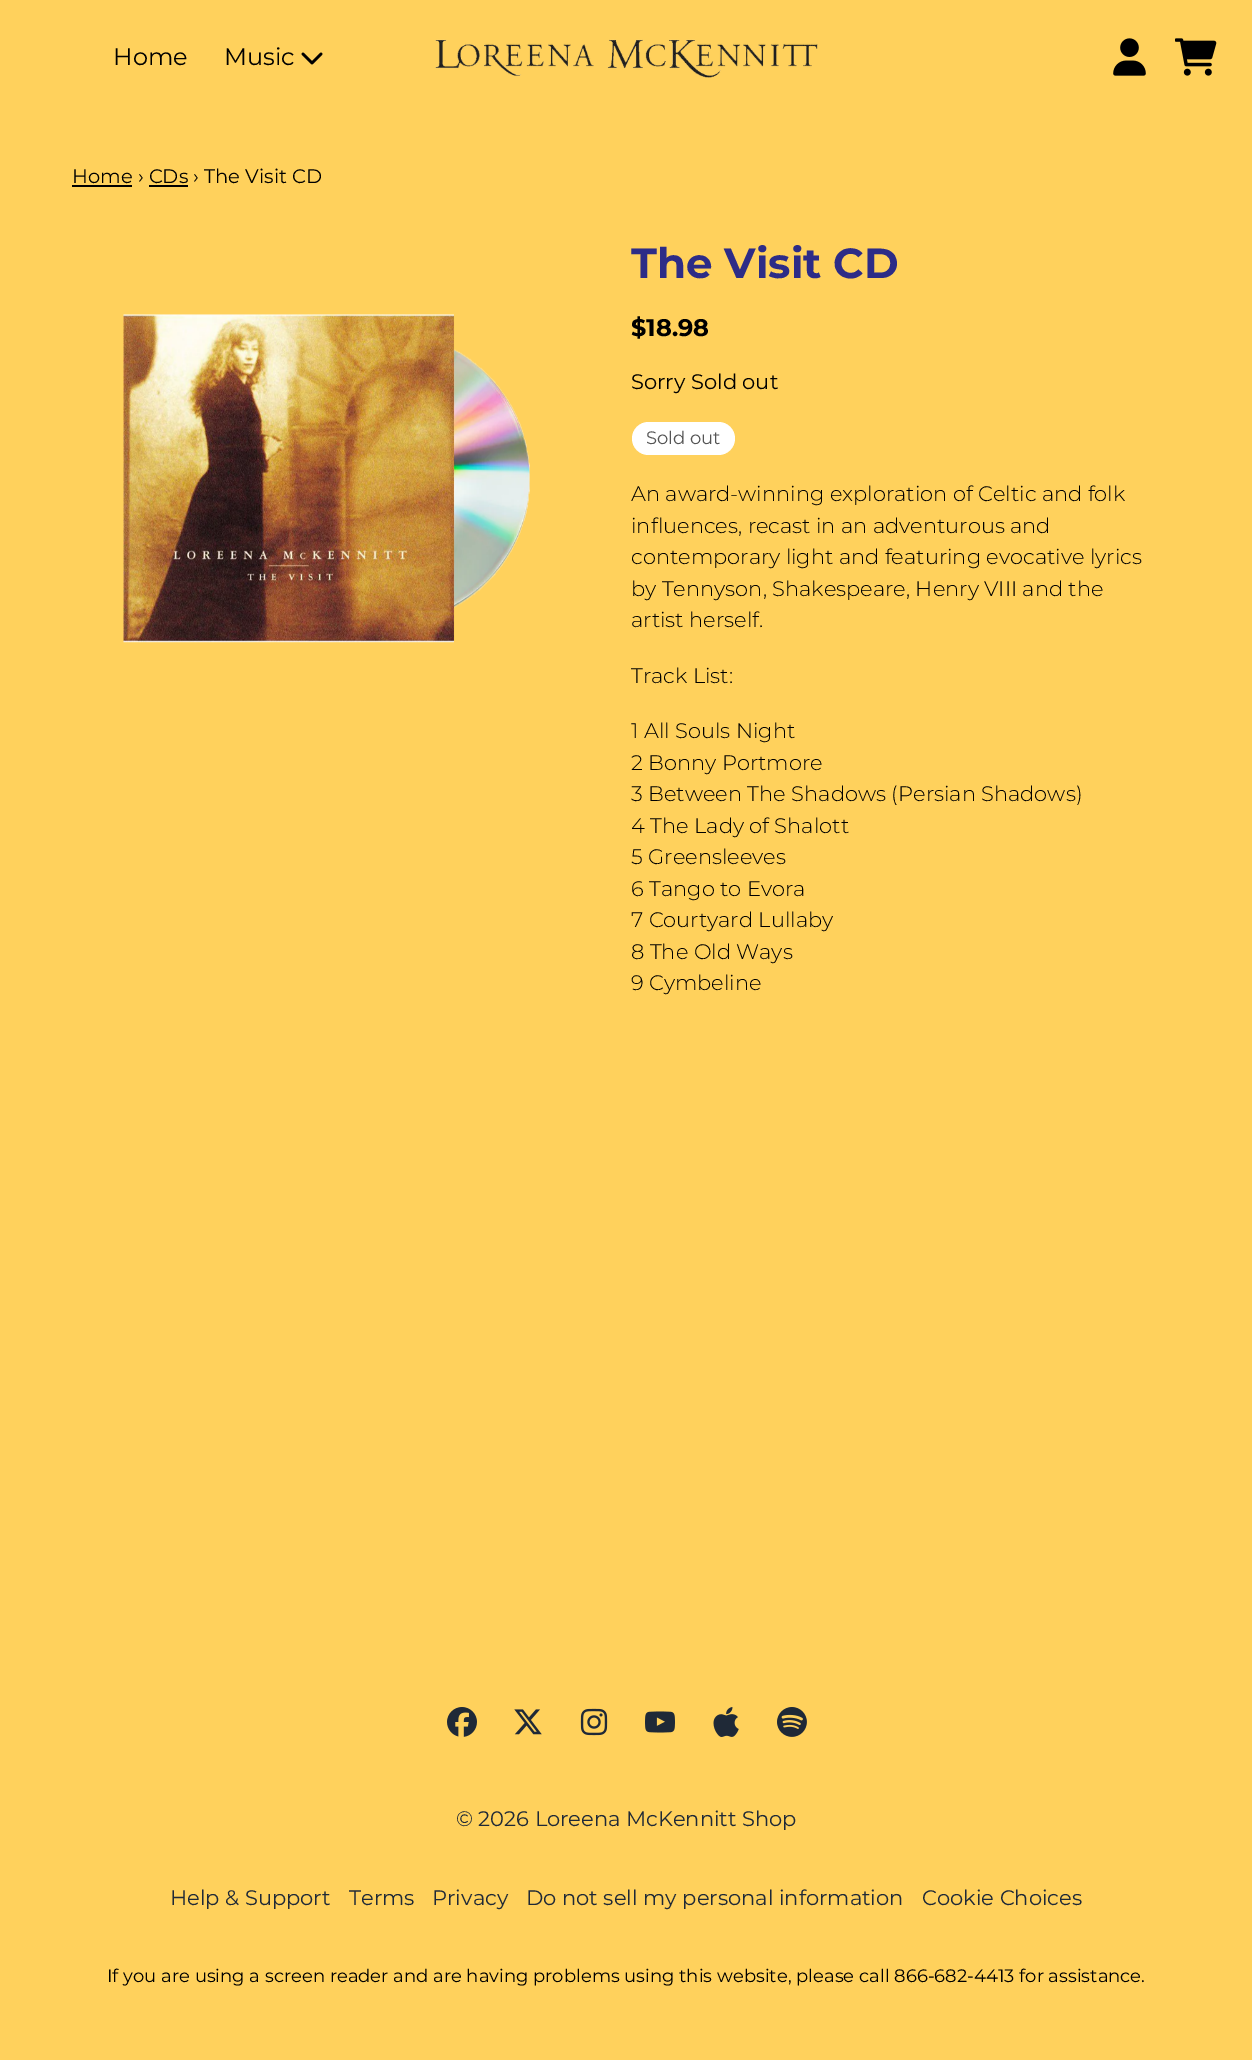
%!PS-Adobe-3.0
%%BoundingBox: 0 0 1252 2060
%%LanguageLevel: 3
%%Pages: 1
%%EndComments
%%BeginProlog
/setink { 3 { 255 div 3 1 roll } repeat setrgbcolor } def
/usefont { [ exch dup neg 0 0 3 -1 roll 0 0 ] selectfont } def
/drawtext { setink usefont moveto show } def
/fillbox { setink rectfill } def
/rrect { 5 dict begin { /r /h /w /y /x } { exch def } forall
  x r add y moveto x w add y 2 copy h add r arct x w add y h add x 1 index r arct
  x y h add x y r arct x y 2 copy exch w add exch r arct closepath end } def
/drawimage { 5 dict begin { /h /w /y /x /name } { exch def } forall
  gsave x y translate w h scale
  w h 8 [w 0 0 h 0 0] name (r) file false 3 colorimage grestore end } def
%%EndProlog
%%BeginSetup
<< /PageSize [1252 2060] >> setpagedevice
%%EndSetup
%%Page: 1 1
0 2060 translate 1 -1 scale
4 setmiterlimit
0 0 1252 2060 255 209 92 fillbox
(Home) 113 65 /Montserrat-Regular 24 0 0 0 drawtext
(Music) 224 65 /Montserrat-Regular 24 0 0 0 drawtext
(assets/img1.rgb) 301 52 22 13 drawimage
(assets/img2.rgb) 435 39 383 39 drawimage
(assets/img3.rgb) 1113 38 33 38 drawimage
(assets/img4.rgb) 1175 38 42 38 drawimage
(Home › CDs › The Visit CD) 72 183 /Montserrat-Regular 19.5 0 0 0 drawtext
72 185 60 2 0 0 0 fillbox
149 185 39 2 0 0 0 fillbox
(assets/img5.rgb) 123 314 407 329 drawimage
(The Visit CD) 631 278 /Montserrat-Bold 42 45 44 135 drawtext
($18.98) 631 336 /Montserrat-Bold 24 0 0 0 drawtext
(Sorry Sold out) 631 389 /Montserrat-Regular 21 0 0 0 drawtext
255 255 255 setink
632 422 103 33 16.5 rrect fill
(Sold out) 646 444 /Montserrat-Regular 18 85 85 85 drawtext
(An award-winning exploration of Celtic and folk) 631 501 /Montserrat-Light 21 0 0 0 drawtext
(influences, recast in an adventurous and) 631 533 /Montserrat-Light 21 0 0 0 drawtext
(contemporary light and featuring evocative lyrics) 631 564 /Montserrat-Light 21 0 0 0 drawtext
(by Tennyson, Shakespeare, Henry VIII and the) 631 596 /Montserrat-Light 21 0 0 0 drawtext
(artist herself.) 631 627 /Montserrat-Light 21 0 0 0 drawtext
(Track List:) 631 683 /Montserrat-Light 21 0 0 0 drawtext
(1 All Souls Night) 631 738 /Montserrat-Light 21 0 0 0 drawtext
(2 Bonny Portmore) 631 770 /Montserrat-Light 21 0 0 0 drawtext
(3 Between The Shadows \(Persian Shadows\)) 631 801 /Montserrat-Light 21 0 0 0 drawtext
(4 The Lady of Shalott) 631 833 /Montserrat-Light 21 0 0 0 drawtext
(5 Greensleeves) 631 864 /Montserrat-Light 21 0 0 0 drawtext
(6 Tango to Evora) 631 896 /Montserrat-Light 21 0 0 0 drawtext
(7 Courtyard Lullaby) 631 927 /Montserrat-Light 21 0 0 0 drawtext
(8 The Old Ways) 631 959 /Montserrat-Light 21 0 0 0 drawtext
(9 Cymbeline) 631 990 /Montserrat-Light 21 0 0 0 drawtext
(assets/img6.rgb) 447 1707 30 30 drawimage
(assets/img7.rgb) 514 1709 28 26 drawimage
(assets/img8.rgb) 580 1708 28 28 drawimage
(assets/img9.rgb) 645 1711 30 22 drawimage
(assets/img10.rgb) 713 1707 26 30 drawimage
(assets/img11.rgb) 777 1707 30 30 drawimage
(© 2026 Loreena McKennitt Shop) 456 1826 /Montserrat-Regular 21 31 41 55 drawtext
(Help & Support) 170 1905 /Montserrat-Regular 21 31 41 55 drawtext
(Terms) 349 1905 /Montserrat-Regular 21 31 41 55 drawtext
(Privacy) 432 1905 /Montserrat-Regular 21 31 41 55 drawtext
(Do not sell my personal information) 526 1905 /Montserrat-Regular 21 31 41 55 drawtext
(Cookie Choices) 922 1905 /Montserrat-Regular 21 31 41 55 drawtext
(If you are using a screen reader and are having problems using this website, please call 866-682-4413 for assistance.) 107 1982 /Montserrat-Regular 18 0 0 0 drawtext
showpage
%%EOF
